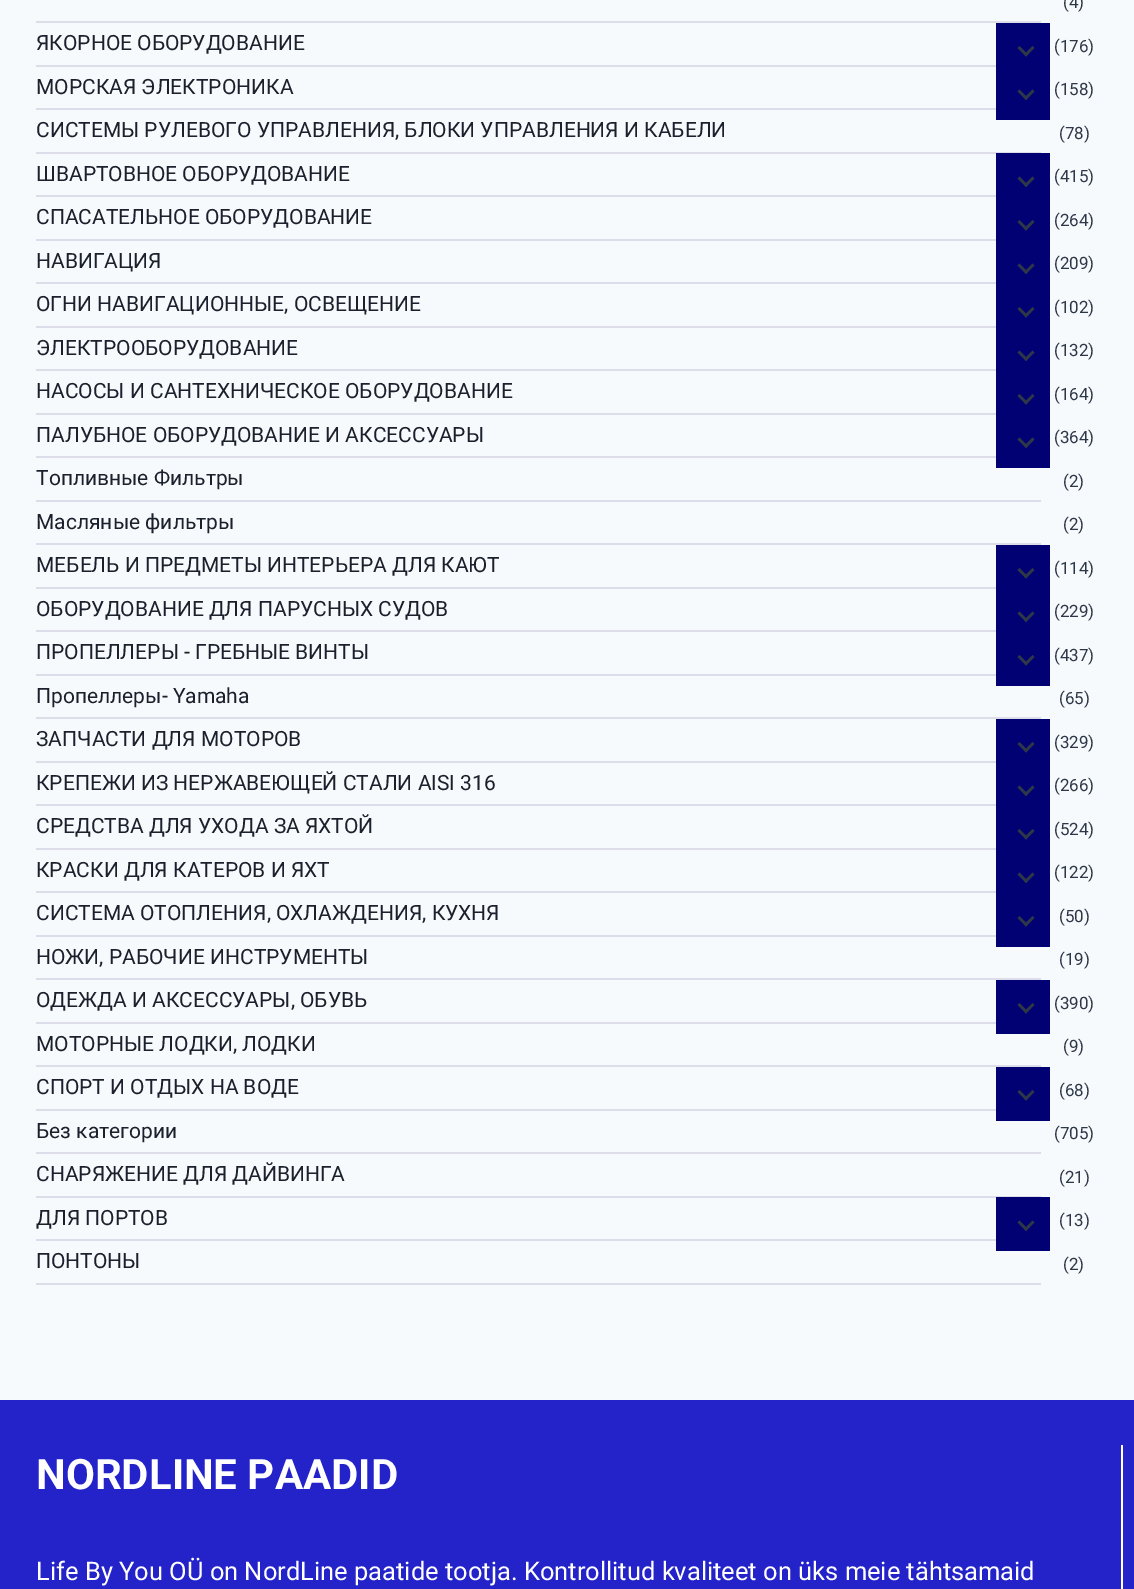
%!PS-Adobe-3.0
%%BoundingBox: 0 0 1134 1589
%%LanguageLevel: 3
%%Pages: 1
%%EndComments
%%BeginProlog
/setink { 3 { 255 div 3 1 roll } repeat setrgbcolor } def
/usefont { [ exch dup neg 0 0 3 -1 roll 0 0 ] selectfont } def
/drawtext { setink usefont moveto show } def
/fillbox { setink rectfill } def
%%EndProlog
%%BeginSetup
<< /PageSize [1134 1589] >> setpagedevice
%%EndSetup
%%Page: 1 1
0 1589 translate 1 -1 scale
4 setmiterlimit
0 0 1134 1589 247 250 252 fillbox
(\(4\)) 1063 8 /Roboto-Regular 17 45 55 72 drawtext
36 21 1005 2 221 221 234 fillbox
36 65 960 2 221 221 234 fillbox
(ЯКОРНОE ОБОРУДОВАНИЕ) 36 50 /Roboto-Regular 21 26 32 44 drawtext
996 23 54 97 1 1 116 fillbox
45 55 72 setink
1034.5 48 moveto 1026 56.5 lineto 1024 54.5 lineto 1032.5 46 lineto closepath fill
1028 54.5 moveto 1026 56.5 lineto 1017.5 48 lineto 1019.5 46 lineto closepath fill
(\(176\)) 1054 52 /Roboto-Regular 17 45 55 72 drawtext
36 108 960 2 221 221 234 fillbox
(МОРСКАЯ ЭЛЕКТРОНИКА) 36 94 /Roboto-Regular 21 26 32 44 drawtext
45 55 72 setink
1034.5 91.5 moveto 1026 100 lineto 1024 98 lineto 1032.5 89.5 lineto closepath fill
1028 98 moveto 1026 100 lineto 1017.5 91.5 lineto 1019.5 89.5 lineto closepath fill
(\(158\)) 1054 95 /Roboto-Regular 17 45 55 72 drawtext
36 152 1005 2 221 221 234 fillbox
(СИСТЕМЫ РУЛЕВОГО УПРАВЛЕНИЯ, БЛОКИ УПРАВЛЕНИЯ И КАБЕЛИ) 36 137 /Roboto-Regular 21 26 32 44 drawtext
(\(78\)) 1059 139 /Roboto-Regular 17 45 55 72 drawtext
36 195 960 2 221 221 234 fillbox
(ШВАРТОВНОЕ ОБОРУДОВАНИЕ) 36 181 /Roboto-Regular 21 26 32 44 drawtext
996 153 54 315 1 1 116 fillbox
45 55 72 setink
1034.5 178.5 moveto 1026 187 lineto 1024 185 lineto 1032.5 176.5 lineto closepath fill
1028 185 moveto 1026 187 lineto 1017.5 178.5 lineto 1019.5 176.5 lineto closepath fill
(\(415\)) 1054 182 /Roboto-Regular 17 45 55 72 drawtext
36 239 960 2 221 221 234 fillbox
(СПАСАТЕЛЬНОЕ ОБОРУДОВАНИЕ) 36 224 /Roboto-Regular 21 26 32 44 drawtext
45 55 72 setink
1034.5 222 moveto 1026 230.5 lineto 1024 228.5 lineto 1032.5 220 lineto closepath fill
1028 228.5 moveto 1026 230.5 lineto 1017.5 222 lineto 1019.5 220 lineto closepath fill
(\(264\)) 1054 226 /Roboto-Regular 17 45 55 72 drawtext
36 282 960 2 221 221 234 fillbox
(НАВИГАЦИЯ) 36 268 /Roboto-Regular 21 26 32 44 drawtext
45 55 72 setink
1034.5 265.5 moveto 1026 274 lineto 1024 272 lineto 1032.5 263.5 lineto closepath fill
1028 272 moveto 1026 274 lineto 1017.5 265.5 lineto 1019.5 263.5 lineto closepath fill
(\(209\)) 1054 269 /Roboto-Regular 17 45 55 72 drawtext
36 326 960 2 221 221 234 fillbox
(ОГНИ НАВИГАЦИОННЫЕ, ОСВЕЩЕНИЕ) 36 311 /Roboto-Regular 21 26 32 44 drawtext
45 55 72 setink
1034.5 309 moveto 1026 317.5 lineto 1024 315.5 lineto 1032.5 307 lineto closepath fill
1028 315.5 moveto 1026 317.5 lineto 1017.5 309 lineto 1019.5 307 lineto closepath fill
(\(102\)) 1054 313 /Roboto-Regular 17 45 55 72 drawtext
36 369 960 2 221 221 234 fillbox
(ЭЛЕКТРООБОРУДОВАНИЕ) 36 355 /Roboto-Regular 21 26 32 44 drawtext
45 55 72 setink
1034.5 352.5 moveto 1026 361 lineto 1024 359 lineto 1032.5 350.5 lineto closepath fill
1028 359 moveto 1026 361 lineto 1017.5 352.5 lineto 1019.5 350.5 lineto closepath fill
(\(132\)) 1054 356 /Roboto-Regular 17 45 55 72 drawtext
36 413 960 2 221 221 234 fillbox
(НАСОСЫ И САНТЕХНИЧЕСКОЕ ОБОРУДОВАНИЕ) 36 398 /Roboto-Regular 21 26 32 44 drawtext
45 55 72 setink
1034.5 396 moveto 1026 404.5 lineto 1024 402.5 lineto 1032.5 394 lineto closepath fill
1028 402.5 moveto 1026 404.5 lineto 1017.5 396 lineto 1019.5 394 lineto closepath fill
(\(164\)) 1054 400 /Roboto-Regular 17 45 55 72 drawtext
36 456 960 2 221 221 234 fillbox
(ПАЛУБНОЕ ОБОРУДОВАНИЕ И АКСЕССУАРЫ) 36 442 /Roboto-Regular 21 26 32 44 drawtext
45 55 72 setink
1034.5 439.5 moveto 1026 448 lineto 1024 446 lineto 1032.5 437.5 lineto closepath fill
1028 446 moveto 1026 448 lineto 1017.5 439.5 lineto 1019.5 437.5 lineto closepath fill
(\(364\)) 1054 443 /Roboto-Regular 17 45 55 72 drawtext
36 500 1005 2 221 221 234 fillbox
(Топливные Фильтры) 36 485 /Roboto-Regular 21 26 32 44 drawtext
(\(2\)) 1063 487 /Roboto-Regular 17 45 55 72 drawtext
36 543 1005 2 221 221 234 fillbox
(Масляные фильтры) 36 529 /Roboto-Regular 21 26 32 44 drawtext
(\(2\)) 1063 530 /Roboto-Regular 17 45 55 72 drawtext
36 587 960 2 221 221 234 fillbox
(МЕБЕЛЬ И ПРЕДМЕТЫ ИНТЕРЬЕРА ДЛЯ КАЮТ) 36 572 /Roboto-Regular 21 26 32 44 drawtext
996 545 54 141 1 1 116 fillbox
45 55 72 setink
1034.5 570 moveto 1026 578.5 lineto 1024 576.5 lineto 1032.5 568 lineto closepath fill
1028 576.5 moveto 1026 578.5 lineto 1017.5 570 lineto 1019.5 568 lineto closepath fill
(\(114\)) 1054 574 /Roboto-Regular 17 45 55 72 drawtext
36 630 960 2 221 221 234 fillbox
(ОБОРУДОВАНИЕ ДЛЯ ПАРУСНЫХ СУДОВ) 36 616 /Roboto-Regular 21 26 32 44 drawtext
45 55 72 setink
1034.5 613.5 moveto 1026 622 lineto 1024 620 lineto 1032.5 611.5 lineto closepath fill
1028 620 moveto 1026 622 lineto 1017.5 613.5 lineto 1019.5 611.5 lineto closepath fill
(\(229\)) 1054 617 /Roboto-Regular 17 45 55 72 drawtext
36 674 960 2 221 221 234 fillbox
(ПРОПЕЛЛЕРЫ - ГРЕБНЫЕ ВИНТЫ) 36 659 /Roboto-Regular 21 26 32 44 drawtext
45 55 72 setink
1034.5 657 moveto 1026 665.5 lineto 1024 663.5 lineto 1032.5 655 lineto closepath fill
1028 663.5 moveto 1026 665.5 lineto 1017.5 657 lineto 1019.5 655 lineto closepath fill
(\(437\)) 1054 661 /Roboto-Regular 17 45 55 72 drawtext
36 717 1005 2 221 221 234 fillbox
(Пропеллеры- Yamaha) 36 703 /Roboto-Regular 21 26 32 44 drawtext
(\(65\)) 1059 704 /Roboto-Regular 17 45 55 72 drawtext
36 761 960 2 221 221 234 fillbox
(ЗАПЧАСТИ ДЛЯ МОТОРОВ) 36 746 /Roboto-Regular 21 26 32 44 drawtext
996 719 54 228 1 1 116 fillbox
45 55 72 setink
1034.5 744 moveto 1026 752.5 lineto 1024 750.5 lineto 1032.5 742 lineto closepath fill
1028 750.5 moveto 1026 752.5 lineto 1017.5 744 lineto 1019.5 742 lineto closepath fill
(\(329\)) 1054 748 /Roboto-Regular 17 45 55 72 drawtext
36 804 960 2 221 221 234 fillbox
(КРЕПЕЖИ ИЗ НЕРЖАВЕЮЩЕЙ СТАЛИ AISI 316) 36 790 /Roboto-Regular 21 26 32 44 drawtext
45 55 72 setink
1034.5 787.5 moveto 1026 796 lineto 1024 794 lineto 1032.5 785.5 lineto closepath fill
1028 794 moveto 1026 796 lineto 1017.5 787.5 lineto 1019.5 785.5 lineto closepath fill
(\(266\)) 1054 791 /Roboto-Regular 17 45 55 72 drawtext
36 848 960 2 221 221 234 fillbox
(СРЕДСТВА ДЛЯ УХОДА ЗА ЯХТОЙ) 36 833 /Roboto-Regular 21 26 32 44 drawtext
45 55 72 setink
1034.5 831 moveto 1026 839.5 lineto 1024 837.5 lineto 1032.5 829 lineto closepath fill
1028 837.5 moveto 1026 839.5 lineto 1017.5 831 lineto 1019.5 829 lineto closepath fill
(\(524\)) 1054 835 /Roboto-Regular 17 45 55 72 drawtext
36 891 960 2 221 221 234 fillbox
(КРАСКИ ДЛЯ КАТЕРOB И ЯХТ) 36 877 /Roboto-Regular 21 26 32 44 drawtext
45 55 72 setink
1034.5 874.5 moveto 1026 883 lineto 1024 881 lineto 1032.5 872.5 lineto closepath fill
1028 881 moveto 1026 883 lineto 1017.5 874.5 lineto 1019.5 872.5 lineto closepath fill
(\(122\)) 1054 878 /Roboto-Regular 17 45 55 72 drawtext
36 935 960 2 221 221 234 fillbox
(СИСТЕМА ОТОПЛЕНИЯ, ОХЛАЖДЕНИЯ, КУХНЯ) 36 920 /Roboto-Regular 21 26 32 44 drawtext
45 55 72 setink
1034.5 918 moveto 1026 926.5 lineto 1024 924.5 lineto 1032.5 916 lineto closepath fill
1028 924.5 moveto 1026 926.5 lineto 1017.5 918 lineto 1019.5 916 lineto closepath fill
(\(50\)) 1059 922 /Roboto-Regular 17 45 55 72 drawtext
36 978 1005 2 221 221 234 fillbox
(НОЖИ, РАБОЧИЕ ИНСТРУМЕНТЫ) 36 964 /Roboto-Regular 21 26 32 44 drawtext
(\(19\)) 1059 965 /Roboto-Regular 17 45 55 72 drawtext
36 1022 960 2 221 221 234 fillbox
(ОДЕЖДА И АКСЕССУАРЫ, ОБУВЬ) 36 1007 /Roboto-Regular 21 26 32 44 drawtext
996 980 54 54 1 1 116 fillbox
45 55 72 setink
1034.5 1005 moveto 1026 1013.5 lineto 1024 1011.5 lineto 1032.5 1003 lineto closepath fill
1028 1011.5 moveto 1026 1013.5 lineto 1017.5 1005 lineto 1019.5 1003 lineto closepath fill
(\(390\)) 1054 1009 /Roboto-Regular 17 45 55 72 drawtext
36 1065 1005 2 221 221 234 fillbox
(МОТОРНЫЕ ЛОДКИ, ЛОДКИ) 36 1051 /Roboto-Regular 21 26 32 44 drawtext
(\(9\)) 1063 1052 /Roboto-Regular 17 45 55 72 drawtext
36 1109 960 2 221 221 234 fillbox
(СПОРТ И ОТДЫХ НА ВОДЕ) 36 1094 /Roboto-Regular 21 26 32 44 drawtext
996 1067 54 54 1 1 116 fillbox
45 55 72 setink
1034.5 1092 moveto 1026 1100.5 lineto 1024 1098.5 lineto 1032.5 1090 lineto closepath fill
1028 1098.5 moveto 1026 1100.5 lineto 1017.5 1092 lineto 1019.5 1090 lineto closepath fill
(\(68\)) 1059 1096 /Roboto-Regular 17 45 55 72 drawtext
36 1152 1005 2 221 221 234 fillbox
(Без категории) 36 1138 /Roboto-Regular 21 26 32 44 drawtext
(\(705\)) 1054 1139 /Roboto-Regular 17 45 55 72 drawtext
36 1196 1005 2 221 221 234 fillbox
(СНАРЯЖЕНИЕ ДЛЯ ДАЙВИНГА) 36 1181 /Roboto-Regular 21 26 32 44 drawtext
(\(21\)) 1059 1183 /Roboto-Regular 17 45 55 72 drawtext
36 1239 960 2 221 221 234 fillbox
(ДЛЯ ПОРТОВ) 36 1225 /Roboto-Regular 21 26 32 44 drawtext
996 1197 54 54 1 1 116 fillbox
45 55 72 setink
1034.5 1222.5 moveto 1026 1231 lineto 1024 1229 lineto 1032.5 1220.5 lineto closepath fill
1028 1229 moveto 1026 1231 lineto 1017.5 1222.5 lineto 1019.5 1220.5 lineto closepath fill
(\(13\)) 1059 1226 /Roboto-Regular 17 45 55 72 drawtext
36 1283 1005 2 221 221 234 fillbox
(ПОНТОНЫ) 36 1268 /Roboto-Regular 21 26 32 44 drawtext
(\(2\)) 1063 1270 /Roboto-Regular 17 45 55 72 drawtext
0 1400 1134 189 35 35 201 fillbox
(NORDLINE PAADID) 36 1489 /Roboto-Bold 42 255 255 255 drawtext
(Life By You OÜ on NordLine paatide tootja. Kontrollitud kvaliteet on üks meie tähtsamaid) 36 1580 /Roboto-Regular 25.5 255 255 255 drawtext
1121 1445 2 144 255 255 255 fillbox
showpage
%%EOF
